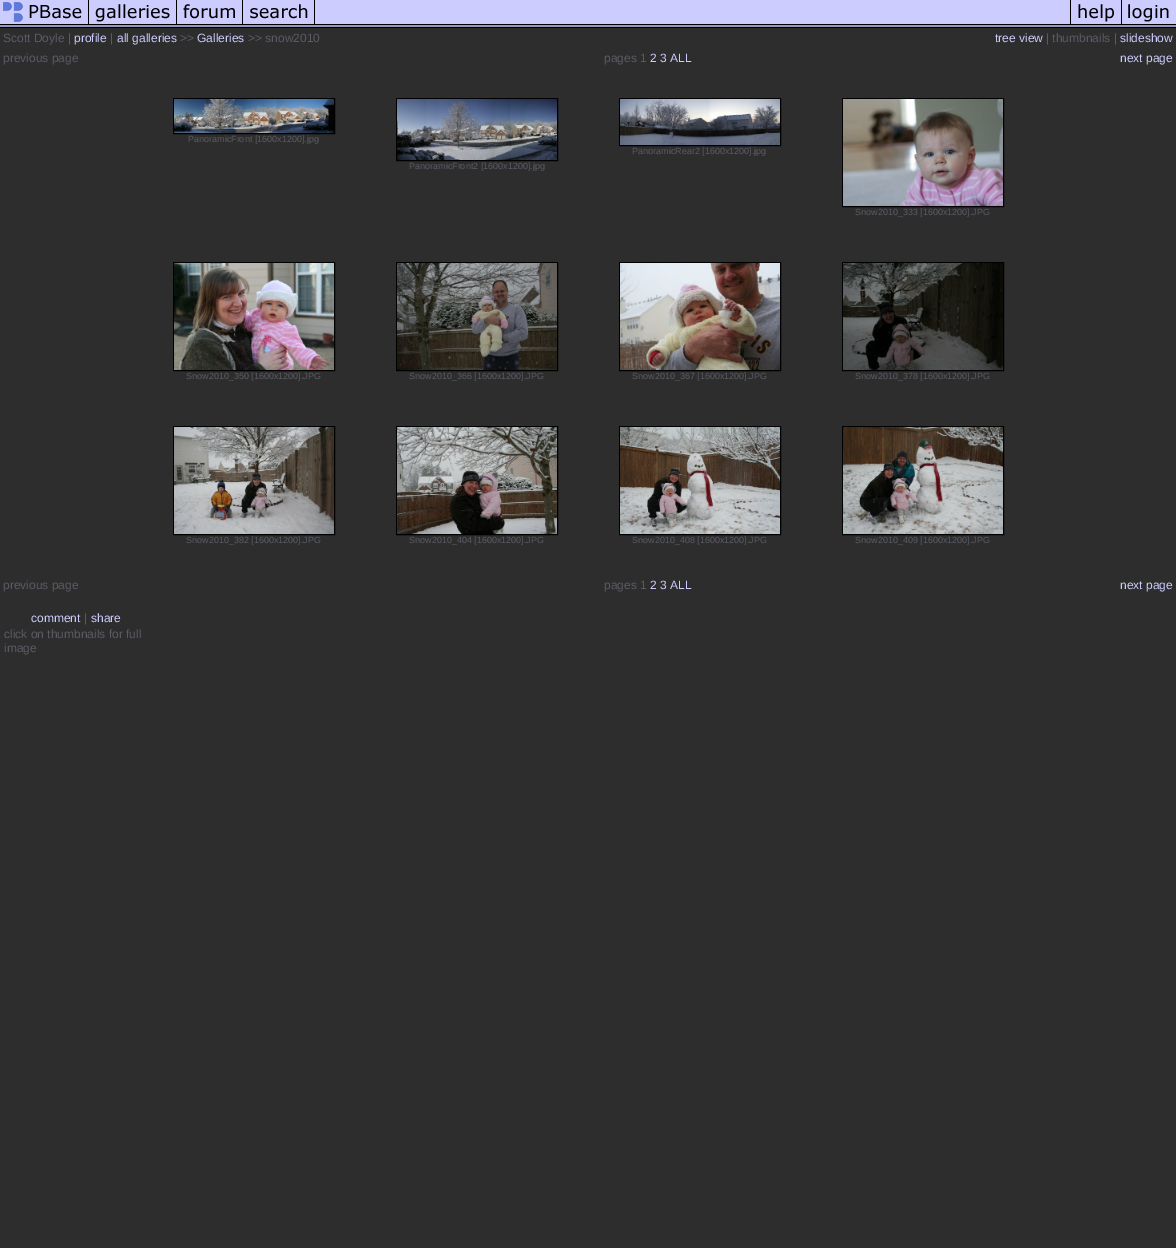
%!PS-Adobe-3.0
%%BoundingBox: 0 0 1176 1248
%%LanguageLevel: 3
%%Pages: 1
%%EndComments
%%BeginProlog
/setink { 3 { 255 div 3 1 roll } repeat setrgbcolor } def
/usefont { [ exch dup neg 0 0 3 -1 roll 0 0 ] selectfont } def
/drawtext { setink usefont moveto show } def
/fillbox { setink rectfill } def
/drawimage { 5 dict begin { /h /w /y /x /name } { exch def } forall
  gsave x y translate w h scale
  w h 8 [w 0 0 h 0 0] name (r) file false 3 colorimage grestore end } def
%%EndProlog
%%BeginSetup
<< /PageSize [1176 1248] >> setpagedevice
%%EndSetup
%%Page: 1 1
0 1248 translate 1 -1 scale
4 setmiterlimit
0 0 1176 1248 45 45 45 fillbox
(assets/img1.rgb) 0 0 89 28 drawimage
(assets/img2.rgb) 89 0 88 28 drawimage
(assets/img3.rgb) 177 0 66 28 drawimage
(assets/img4.rgb) 243 0 72 28 drawimage
(assets/img5.rgb) 315 0 755 28 drawimage
(assets/img6.rgb) 1070 0 52 28 drawimage
(assets/img7.rgb) 1122 0 54 28 drawimage
(Scott Doyle |) 3 42 /LiberationSans-Regular 12 91 91 101 drawtext
(profile) 74 42 /LiberationSans-Regular 12 204 204 255 drawtext
(|) 110 42 /LiberationSans-Regular 12 91 91 101 drawtext
(all galleries) 117 42 /LiberationSans-Regular 12 204 204 255 drawtext
(>>) 180 42 /LiberationSans-Regular 12 91 91 101 drawtext
(Galleries) 197 42 /LiberationSans-Regular 12 204 204 255 drawtext
(>> snow2010) 248 42 /LiberationSans-Regular 12 91 91 101 drawtext
(tree view) 995 42 /LiberationSans-Regular 12 204 204 255 drawtext
(| thumbnails |) 1046 42 /LiberationSans-Regular 12 91 91 101 drawtext
(slideshow) 1120 42 /LiberationSans-Regular 12 204 204 255 drawtext
(previous page) 3 62 /LiberationSans-Regular 12 91 91 101 drawtext
(pages 1) 604 62 /LiberationSans-Regular 12 91 91 101 drawtext
(2 3 ALL) 650 62 /LiberationSans-Regular 12 204 204 255 drawtext
(next page) 1120 62 /LiberationSans-Regular 12 204 204 255 drawtext
0 0 0 setink
173.5 98.5 161 35 rectstroke
(assets/img8.rgb) 174 99 160 34 drawimage
(PanoramicFront [1600x1200].jpg) 188 142 /LiberationSans-Regular 9 91 91 101 drawtext
0 0 0 setink
619.5 98.5 161 47 rectstroke
(assets/img9.rgb) 620 99 160 46 drawimage
(PanoramicRear2 [1600x1200].jpg) 632 154 /LiberationSans-Regular 9 91 91 101 drawtext
0 0 0 setink
396.5 98.5 161 62 rectstroke
(assets/img10.rgb) 397 99 160 61 drawimage
(PanoramicFront2 [1600x1200].jpg) 409 169 /LiberationSans-Regular 9 91 91 101 drawtext
0 0 0 setink
842.5 98.5 161 108 rectstroke
(assets/img11.rgb) 843 99 160 107 drawimage
(Snow2010_333 [1600x1200].JPG) 855 215 /LiberationSans-Regular 9 91 91 101 drawtext
0 0 0 setink
173.5 262.5 161 108 rectstroke
(assets/img12.rgb) 174 263 160 107 drawimage
(Snow2010_350 [1600x1200].JPG) 186 379 /LiberationSans-Regular 9 91 91 101 drawtext
0 0 0 setink
396.5 262.5 161 108 rectstroke
(assets/img13.rgb) 397 263 160 107 drawimage
(Snow2010_366 [1600x1200].JPG) 409 379 /LiberationSans-Regular 9 91 91 101 drawtext
0 0 0 setink
619.5 262.5 161 108 rectstroke
(assets/img14.rgb) 620 263 160 107 drawimage
(Snow2010_367 [1600x1200].JPG) 632 379 /LiberationSans-Regular 9 91 91 101 drawtext
0 0 0 setink
842.5 262.5 161 108 rectstroke
(assets/img15.rgb) 843 263 160 107 drawimage
(Snow2010_378 [1600x1200].JPG) 855 379 /LiberationSans-Regular 9 91 91 101 drawtext
0 0 0 setink
173.5 426.5 161 108 rectstroke
(assets/img16.rgb) 174 427 160 107 drawimage
(Snow2010_382 [1600x1200].JPG) 186 543 /LiberationSans-Regular 9 91 91 101 drawtext
0 0 0 setink
396.5 426.5 161 108 rectstroke
(assets/img17.rgb) 397 427 160 107 drawimage
(Snow2010_404 [1600x1200].JPG) 409 543 /LiberationSans-Regular 9 91 91 101 drawtext
0 0 0 setink
619.5 426.5 161 108 rectstroke
(assets/img18.rgb) 620 427 160 107 drawimage
(Snow2010_408 [1600x1200].JPG) 632 543 /LiberationSans-Regular 9 91 91 101 drawtext
0 0 0 setink
842.5 426.5 161 108 rectstroke
(assets/img19.rgb) 843 427 160 107 drawimage
(Snow2010_409 [1600x1200].JPG) 855 543 /LiberationSans-Regular 9 91 91 101 drawtext
(previous page) 3 589 /LiberationSans-Regular 12 91 91 101 drawtext
(pages 1) 604 589 /LiberationSans-Regular 12 91 91 101 drawtext
(2 3 ALL) 650 589 /LiberationSans-Regular 12 204 204 255 drawtext
(next page) 1120 589 /LiberationSans-Regular 12 204 204 255 drawtext
(comment) 31 622 /LiberationSans-Regular 12 204 204 255 drawtext
(|) 84 622 /LiberationSans-Regular 12 91 91 101 drawtext
(share) 91 622 /LiberationSans-Regular 12 204 204 255 drawtext
(click on thumbnails for full) 4 638 /LiberationSans-Regular 12 91 91 101 drawtext
(image) 4 652 /LiberationSans-Regular 12 91 91 101 drawtext
showpage
%%EOF
